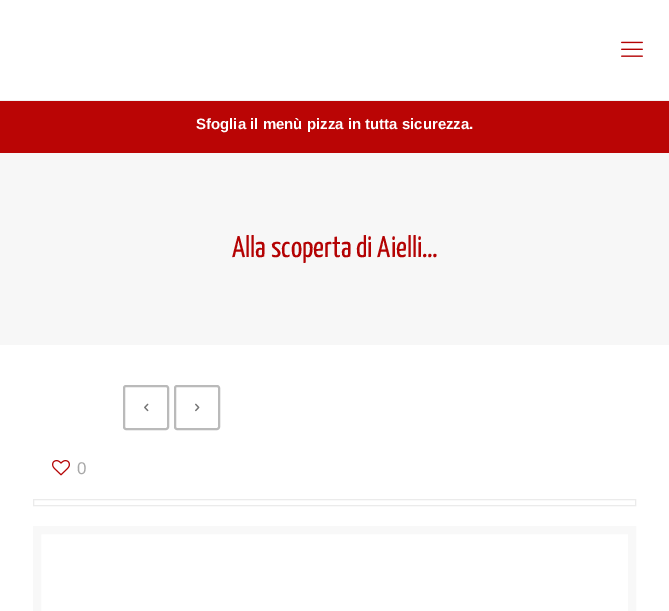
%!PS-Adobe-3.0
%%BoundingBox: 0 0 669 611
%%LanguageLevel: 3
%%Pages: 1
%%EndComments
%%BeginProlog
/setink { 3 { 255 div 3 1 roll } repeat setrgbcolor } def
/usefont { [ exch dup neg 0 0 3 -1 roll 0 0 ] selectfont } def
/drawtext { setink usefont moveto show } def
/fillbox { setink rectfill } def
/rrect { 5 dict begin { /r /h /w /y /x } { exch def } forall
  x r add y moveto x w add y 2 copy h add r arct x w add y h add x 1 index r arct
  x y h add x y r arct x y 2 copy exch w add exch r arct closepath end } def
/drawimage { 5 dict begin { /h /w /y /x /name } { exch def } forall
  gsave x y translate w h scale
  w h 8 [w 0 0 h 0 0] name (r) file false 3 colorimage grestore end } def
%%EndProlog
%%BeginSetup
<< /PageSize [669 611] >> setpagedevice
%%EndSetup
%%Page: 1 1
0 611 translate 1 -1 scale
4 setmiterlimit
0 0 669 611 255 255 255 fillbox
0 100 669 1 242 242 242 fillbox
(assets/img1.rgb) 621 41 22 16 drawimage
0 101 669 52 186 5 5 fillbox
(Sfoglia il menù pizza in tutta sicurezza.) 196 129 /LiberationSans-Bold 15 255 255 255 drawtext
0 153 669 192 247 247 247 fillbox
(Alla scoperta di Aielli…) 232 257 /YanoneKaffeesatz-Regular 30 180 2 3 drawtext
186 186 186 setink
2 setlinewidth
124 386 44 43 2 rrect stroke
(assets/img2.rgb) 144 403 5 9 drawimage
175 386 44 43 2 rrect stroke
(assets/img3.rgb) 195 403 5 9 drawimage
(assets/img4.rgb) 52 460 18 16 drawimage
(0) 77 474 /LiberationSans-Regular 17 168 168 168 drawtext
235 235 235 setink
1 setlinewidth
33.5 499.5 602 6 rectstroke
248 248 248 setink
8 setlinewidth
37 530 595 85 rectstroke
showpage
%%EOF
